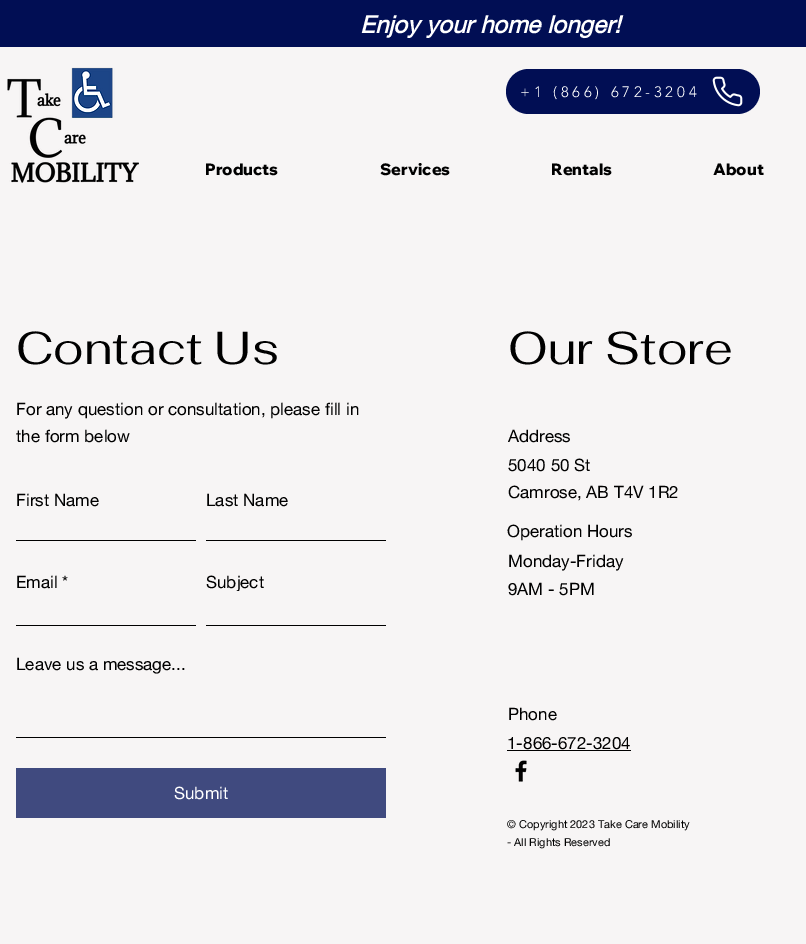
%!PS-Adobe-3.0
%%BoundingBox: 0 0 806 944
%%LanguageLevel: 3
%%Pages: 1
%%EndComments
%%BeginProlog
/setink { 3 { 255 div 3 1 roll } repeat setrgbcolor } def
/usefont { [ exch dup neg 0 0 3 -1 roll 0 0 ] selectfont } def
/drawtext { setink usefont moveto show } def
/fillbox { setink rectfill } def
/rrect { 5 dict begin { /r /h /w /y /x } { exch def } forall
  x r add y moveto x w add y 2 copy h add r arct x w add y h add x 1 index r arct
  x y h add x y r arct x y 2 copy exch w add exch r arct closepath end } def
/drawimage { 5 dict begin { /h /w /y /x /name } { exch def } forall
  gsave x y translate w h scale
  w h 8 [w 0 0 h 0 0] name (r) file false 3 colorimage grestore end } def
%%EndProlog
%%BeginSetup
<< /PageSize [806 944] >> setpagedevice
%%EndSetup
%%Page: 1 1
0 944 translate 1 -1 scale
4 setmiterlimit
0 0 806 944 247 245 245 fillbox
0 0 806 47 1 14 84 fillbox
(Enjoy your home longer!) 360 33 /helveticaneue-BoldItalic 24 255 255 255 drawtext
(assets/img1.rgb) 7 67 132 116 drawimage
1 14 84 setink
506 69 254 45 22.5 rrect fill
/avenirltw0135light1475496-Light 15 usefont
255 255 255 setink
520 97 moveto 3.75 0 (+1 \(866\) 672-3204) ashow
(assets/img2.rgb) 712 76 31 31 drawimage
(Products) 205 175 /WixMadeforDisplay-ExtraBold 16 0 0 0 drawtext
(Services) 380 175 /WixMadeforDisplay-ExtraBold 16 0 0 0 drawtext
(Rentals) 551 175 /WixMadeforDisplay-ExtraBold 16 0 0 0 drawtext
(About) 713 175 /WixMadeforDisplay-ExtraBold 16 0 0 0 drawtext
(Contact Us) 16 364 /Fahkwang-Regular 46 0 0 0 drawtext
(For any question or consultation, please fill in) 16 415 /helveticaneue-Regular 17 0 0 0 drawtext
(the form below) 16 442 /helveticaneue-Regular 17 0 0 0 drawtext
(First Name) 16 506 /helveticaneue-Regular 17 0 0 0 drawtext
16 540 180 1 0 0 0 fillbox
(Last Name) 206 506 /helveticaneue-Regular 17 0 0 0 drawtext
206 540 180 1 0 0 0 fillbox
(Email *) 16 588 /helveticaneue-Regular 17 0 0 0 drawtext
16 625 180 1 0 0 0 fillbox
(Subject) 206 588 /helveticaneue-Regular 17 0 0 0 drawtext
236 591 3 1 247 245 245 fillbox
206 625 180 1 0 0 0 fillbox
(Leave us a message...) 16 670 /helveticaneue-Regular 17 0 0 0 drawtext
16 737 370 1 0 0 0 fillbox
16 768 370 50 64 74 127 fillbox
(Submit) 174 799 /helveticaneue-Regular 17 255 255 255 drawtext
(Our Store) 508 364 /Fahkwang-Regular 46 0 0 0 drawtext
(Address) 508 442 /helveticaneue-Regular 17 0 0 0 drawtext
(5040 50 St) 508 471 /helveticaneue-Regular 17 0 0 0 drawtext
(Camrose, AB T4V 1R2) 508 498 /helveticaneue-Regular 17 0 0 0 drawtext
(Operation Hours) 507 537 /helveticaneue-Regular 17 0 0 0 drawtext
(Monday-Friday) 508 567 /helveticaneue-Regular 17 0 0 0 drawtext
(9AM - 5PM) 508 595 /helveticaneue-Regular 17 0 0 0 drawtext
(Phone) 508 720 /helveticaneue-Regular 17 0 0 0 drawtext
(1-866-672-3204) 507 749 /helveticaneue-Regular 17 0 0 0 drawtext
507 750 124 1 0 0 0 fillbox
(assets/img3.rgb) 515 760 12 22 drawimage
(© Copyright 2023 Take Care Mobility) 507 828 /helveticaneue-Regular 11 0 0 0 drawtext
(- All Rights Reserved) 507 846 /helveticaneue-Regular 11 0 0 0 drawtext
showpage
%%EOF
